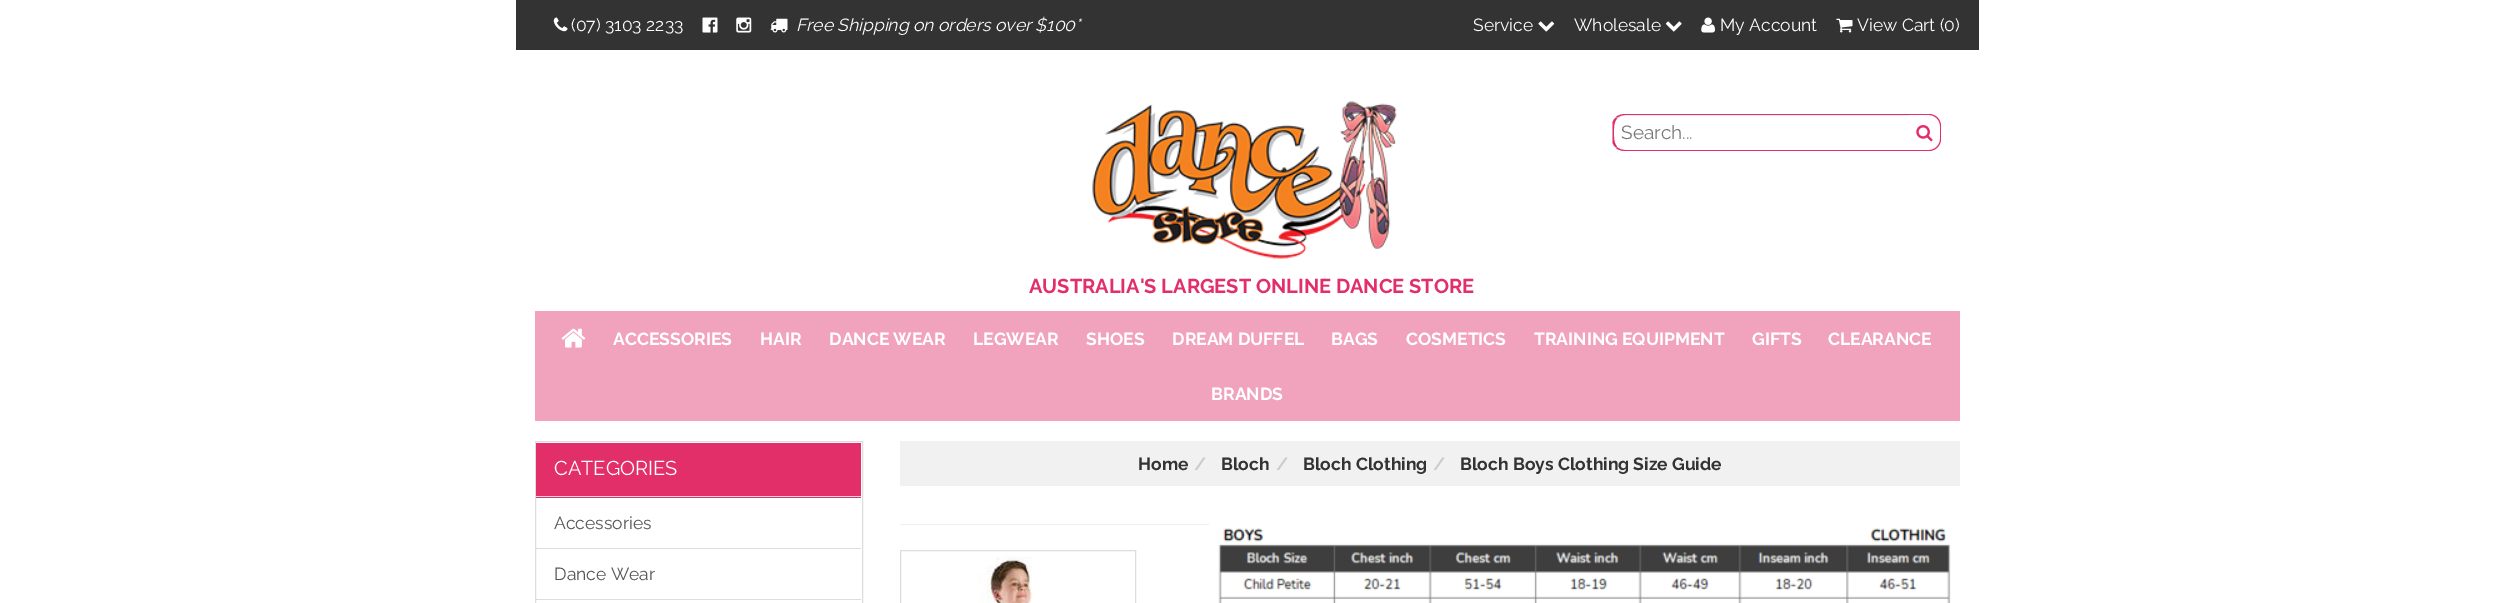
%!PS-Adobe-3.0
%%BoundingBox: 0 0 2493 603
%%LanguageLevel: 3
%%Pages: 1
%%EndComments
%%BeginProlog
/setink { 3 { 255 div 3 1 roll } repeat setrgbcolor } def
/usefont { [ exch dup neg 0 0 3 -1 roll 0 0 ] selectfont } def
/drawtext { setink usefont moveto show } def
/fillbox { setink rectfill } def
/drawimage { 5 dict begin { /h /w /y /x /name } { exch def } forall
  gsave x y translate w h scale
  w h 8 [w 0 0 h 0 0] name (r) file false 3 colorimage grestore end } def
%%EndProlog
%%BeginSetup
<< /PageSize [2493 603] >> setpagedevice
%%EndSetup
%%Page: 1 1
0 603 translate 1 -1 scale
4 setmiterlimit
0 0 2493 603 255 255 255 fillbox
516 0 1463 50 51 51 51 fillbox
(assets/img1.rgb) 553 17 15 15 drawimage
(\(07\) 3103 2233) 571 31 /Raleway-Regular 17.5 255 255 255 drawtext
(assets/img2.rgb) 702 17 16 16 drawimage
(assets/img3.rgb) 736 17 16 16 drawimage
(assets/img4.rgb) 770 18 18 15 drawimage
(Free Shipping on orders over $100*) 796 31 /Raleway-Italic 17.5 255 255 255 drawtext
(Service) 1473 31 /Raleway-Regular 17.5 255 255 255 drawtext
(assets/img5.rgb) 1538 21 17 11 drawimage
(Wholesale) 1574 31 /Raleway-Regular 17.5 255 255 255 drawtext
(assets/img6.rgb) 1665 21 17 11 drawimage
(assets/img7.rgb) 1701 17 14 16 drawimage
(My Account) 1720 31 /Raleway-Regular 17.5 255 255 255 drawtext
(assets/img8.rgb) 1836 18 17 15 drawimage
(View Cart \(0\)) 1857 31 /Raleway-Regular 17.5 255 255 255 drawtext
236 236 236 setink
1625 116 moveto 1909 116 lineto 1909 115 lineto 1625 115 lineto 1619 115 1614 120 1614 126 curveto 1614 128 lineto 1614 121 1619 116 1625 116 curveto closepath fill
226 47 105 setink
1625 114 moveto 1622 114 1618 115 1616 117 curveto 1617 118 lineto 1619 116 1622 115 1625 115 curveto 1909 115 lineto 1910 114 lineto closepath fill
255 255 255 setink
1910 151 moveto 1910 114 lineto 1909 115 lineto 1909 150 lineto closepath fill
226 47 105 setink
1910 151 moveto 1625 151 lineto 1622 151 1618 150 1616 148 curveto 1617 147 lineto 1619 149 1622 150 1625 150 curveto 1909 150 lineto closepath fill
1612.5 122.5 moveto 1613 120.5 1614.5 118.5 1616 117.5 curveto 1617 118.5 lineto 1613.5 122.5 1614 127.5 1614 132.5 curveto 1614 137.5 1613.5 142.5 1617 146.5 curveto 1616 147.5 lineto 1614.5 146.5 1613 144.5 1612.5 142.5 curveto closepath fill
(Search...) 1621 139 /Raleway-Regular 19 119 119 119 drawtext
226 47 105 setink
1909 114 moveto 1929 114 lineto 1935.5 114 1941 119.5 1941 126 curveto 1941 139 lineto 1941 145.5 1935.5 151 1929 151 curveto 1909 151 lineto closepath 1909 115 moveto 1929 115 lineto 1935 115 1940 120 1940 126 curveto 1940 139 lineto 1940 145 1935 150 1929 150 curveto 1909 150 lineto closepath eofill
(assets/img9.rgb) 1916 125 17 17 drawimage
(assets/img10.rgb) 1092 101 305 158 drawimage
(AUSTRALIA'S LARGEST ONLINE DANCE STORE) 1029 293 /Raleway-Bold 20 226 47 105 drawtext
535 311 1425 110 241 163 189 fillbox
(assets/img11.rgb) 561 328 25 20 drawimage
(ACCESSORIES) 613 345 /Raleway-Bold 17.5 255 255 255 drawtext
(HAIR) 760 345 /Raleway-Bold 17.5 255 255 255 drawtext
(DANCE WEAR) 829 345 /Raleway-Bold 17.5 255 255 255 drawtext
(LEGWEAR) 973 345 /Raleway-Bold 17.5 255 255 255 drawtext
(SHOES) 1086 345 /Raleway-Bold 17.5 255 255 255 drawtext
(DREAM DUFFEL) 1172 345 /Raleway-Bold 17.5 255 255 255 drawtext
(BAGS) 1331 345 /Raleway-Bold 17.5 255 255 255 drawtext
(COSMETICS) 1406 345 /Raleway-Bold 17.5 255 255 255 drawtext
(TRAINING EQUIPMENT) 1534 345 /Raleway-Bold 17.5 255 255 255 drawtext
(GIFTS) 1752 345 /Raleway-Bold 17.5 255 255 255 drawtext
(CLEARANCE) 1828 345 /Raleway-Bold 17.5 255 255 255 drawtext
(BRANDS) 1211 400 /Raleway-Bold 17.5 255 255 255 drawtext
221 221 221 setink
535.5 441.5 327 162 rectstroke
536 443 325 55 226 47 105 fillbox
536 496 325 1 221 221 221 fillbox
(CATEGORIES) 554 475 /Raleway-Regular 20 255 255 255 drawtext
(Accessories) 554 529 /Raleway-Regular 17.5 85 85 85 drawtext
536 548 325 1 221 221 221 fillbox
(Dance Wear) 554 580 /Raleway-Regular 17.5 85 85 85 drawtext
536 599 325 1 221 221 221 fillbox
900 441 1060 45 241 241 241 fillbox
(Home) 1138 470 /Raleway-Bold 17.5 51 51 51 drawtext
(/) 1194 470 /Raleway-Bold 17.5 204 204 204 drawtext
(Bloch) 1221 470 /Raleway-Bold 17.5 51 51 51 drawtext
(/) 1276 470 /Raleway-Bold 17.5 204 204 204 drawtext
(Bloch Clothing) 1303 470 /Raleway-Bold 17.5 51 51 51 drawtext
(/) 1433 470 /Raleway-Bold 17.5 204 204 204 drawtext
(Bloch Boys Clothing Size Guide) 1460 470 /Raleway-Bold 17.5 51 51 51 drawtext
900 524 309 1 238 238 238 fillbox
221 221 221 setink
900.5 550.5 235 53 rectstroke
(assets/img12.rgb) 978 556 55 47 drawimage
(assets/img13.rgb) 1218 528 733 75 drawimage
showpage
%%EOF
